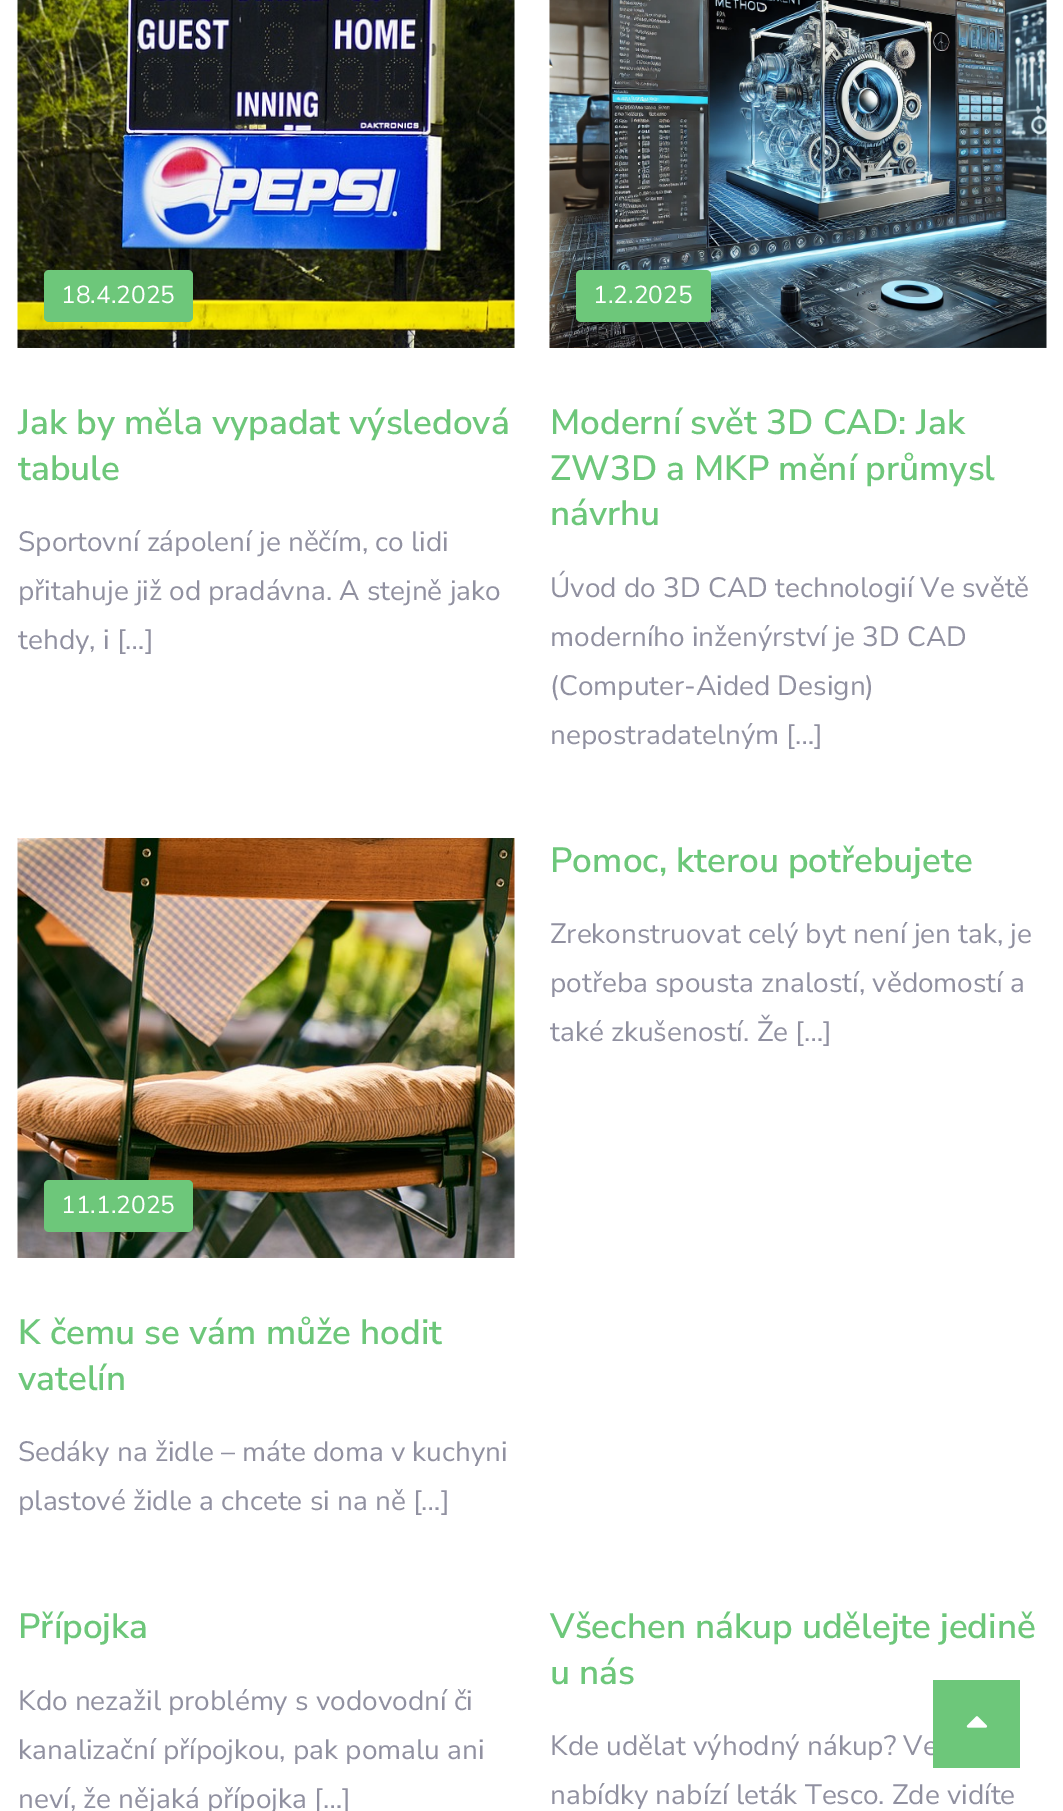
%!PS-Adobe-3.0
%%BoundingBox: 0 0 1063 1811
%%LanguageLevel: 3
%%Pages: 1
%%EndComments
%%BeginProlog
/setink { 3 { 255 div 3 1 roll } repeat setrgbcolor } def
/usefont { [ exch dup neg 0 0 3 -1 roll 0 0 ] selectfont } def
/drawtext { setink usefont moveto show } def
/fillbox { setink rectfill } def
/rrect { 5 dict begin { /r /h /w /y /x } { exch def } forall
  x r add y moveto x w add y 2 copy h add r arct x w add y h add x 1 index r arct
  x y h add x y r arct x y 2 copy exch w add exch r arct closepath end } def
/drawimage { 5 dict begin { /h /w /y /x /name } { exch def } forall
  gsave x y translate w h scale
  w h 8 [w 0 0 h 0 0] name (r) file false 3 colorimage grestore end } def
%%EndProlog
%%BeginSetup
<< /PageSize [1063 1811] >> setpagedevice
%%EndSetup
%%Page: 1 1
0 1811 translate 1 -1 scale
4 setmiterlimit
0 0 1063 1811 255 255 255 fillbox
(assets/img1.rgb) 17 0 498 348 drawimage
109 199 122 setink
44 270 149 52 5 rrect fill
(18.4.2025) 61 303 /NunitoSans-Regular 24.5 255 255 255 drawtext
(Jak by měla vypadat výsledová) 18 434 /NunitoSans-SemiBold 35 109 199 122 drawtext
(tabule) 18 480 /NunitoSans-SemiBold 35 109 199 122 drawtext
(Sportovní zápolení je něčím, co lidi) 18 551 /NunitoSans-Regular 28 144 144 160 drawtext
(přitahuje již od pradávna. A stejně jako) 18 600 /NunitoSans-Regular 28 144 144 160 drawtext
(tehdy, i […]) 18 649 /NunitoSans-Regular 28 144 144 160 drawtext
(assets/img2.rgb) 549 0 498 348 drawimage
109 199 122 setink
576 270 135 52 5 rrect fill
(1.2.2025) 593 303 /NunitoSans-Regular 24.5 255 255 255 drawtext
(Moderní svět 3D CAD: Jak) 550 434 /NunitoSans-SemiBold 35 109 199 122 drawtext
(ZW3D a MKP mění průmysl) 550 480 /NunitoSans-SemiBold 35 109 199 122 drawtext
(návrhu) 550 525 /NunitoSans-SemiBold 35 109 199 122 drawtext
(Úvod do 3D CAD technologií Ve světě) 550 597 /NunitoSans-Regular 28 144 144 160 drawtext
(moderního inženýrství je 3D CAD) 550 646 /NunitoSans-Regular 28 144 144 160 drawtext
(\(Computer-Aided Design\)) 550 695 /NunitoSans-Regular 28 144 144 160 drawtext
(nepostradatelným […]) 550 744 /NunitoSans-Regular 28 144 144 160 drawtext
(Pomoc, kterou potřebujete) 550 872 /NunitoSans-SemiBold 35 109 199 122 drawtext
(Zrekonstruovat celý byt není jen tak, je) 550 943 /NunitoSans-Regular 28 144 144 160 drawtext
(potřeba spousta znalostí, vědomostí a) 550 992 /NunitoSans-Regular 28 144 144 160 drawtext
(také zkušeností. Že […]) 550 1041 /NunitoSans-Regular 28 144 144 160 drawtext
(assets/img3.rgb) 17 838 498 420 drawimage
109 199 122 setink
44 1180 149 52 5 rrect fill
(11.1.2025) 61 1213 /NunitoSans-Regular 24.5 255 255 255 drawtext
(K čemu se vám může hodit) 18 1344 /NunitoSans-SemiBold 35 109 199 122 drawtext
(vatelín) 18 1390 /NunitoSans-SemiBold 35 109 199 122 drawtext
(Sedáky na židle – máte doma v kuchyni) 18 1461 /NunitoSans-Regular 28 144 144 160 drawtext
(plastové židle a chcete si na ně […]) 18 1510 /NunitoSans-Regular 28 144 144 160 drawtext
(Přípojka) 18 1638 /NunitoSans-SemiBold 35 109 199 122 drawtext
(Kdo nezažil problémy s vodovodní či) 18 1710 /NunitoSans-Regular 28 144 144 160 drawtext
(kanalizační přípojkou, pak pomalu ani) 18 1759 /NunitoSans-Regular 28 144 144 160 drawtext
(neví, že nějaká přípojka […]) 18 1808 /NunitoSans-Regular 28 144 144 160 drawtext
(Všechen nákup udělejte jedině) 550 1638 /NunitoSans-SemiBold 35 109 199 122 drawtext
(u nás) 550 1684 /NunitoSans-SemiBold 35 109 199 122 drawtext
(Kde udělat výhodný nákup? Ve) 550 1755 /NunitoSans-Regular 28 144 144 160 drawtext
(nabídky nabízí leták Tesco. Zde vidíte) 550 1804 /NunitoSans-Regular 28 144 144 160 drawtext
933 1680 87 88 109 199 122 fillbox
(assets/img4.rgb) 966 1716 22 12 drawimage
showpage
%%EOF
